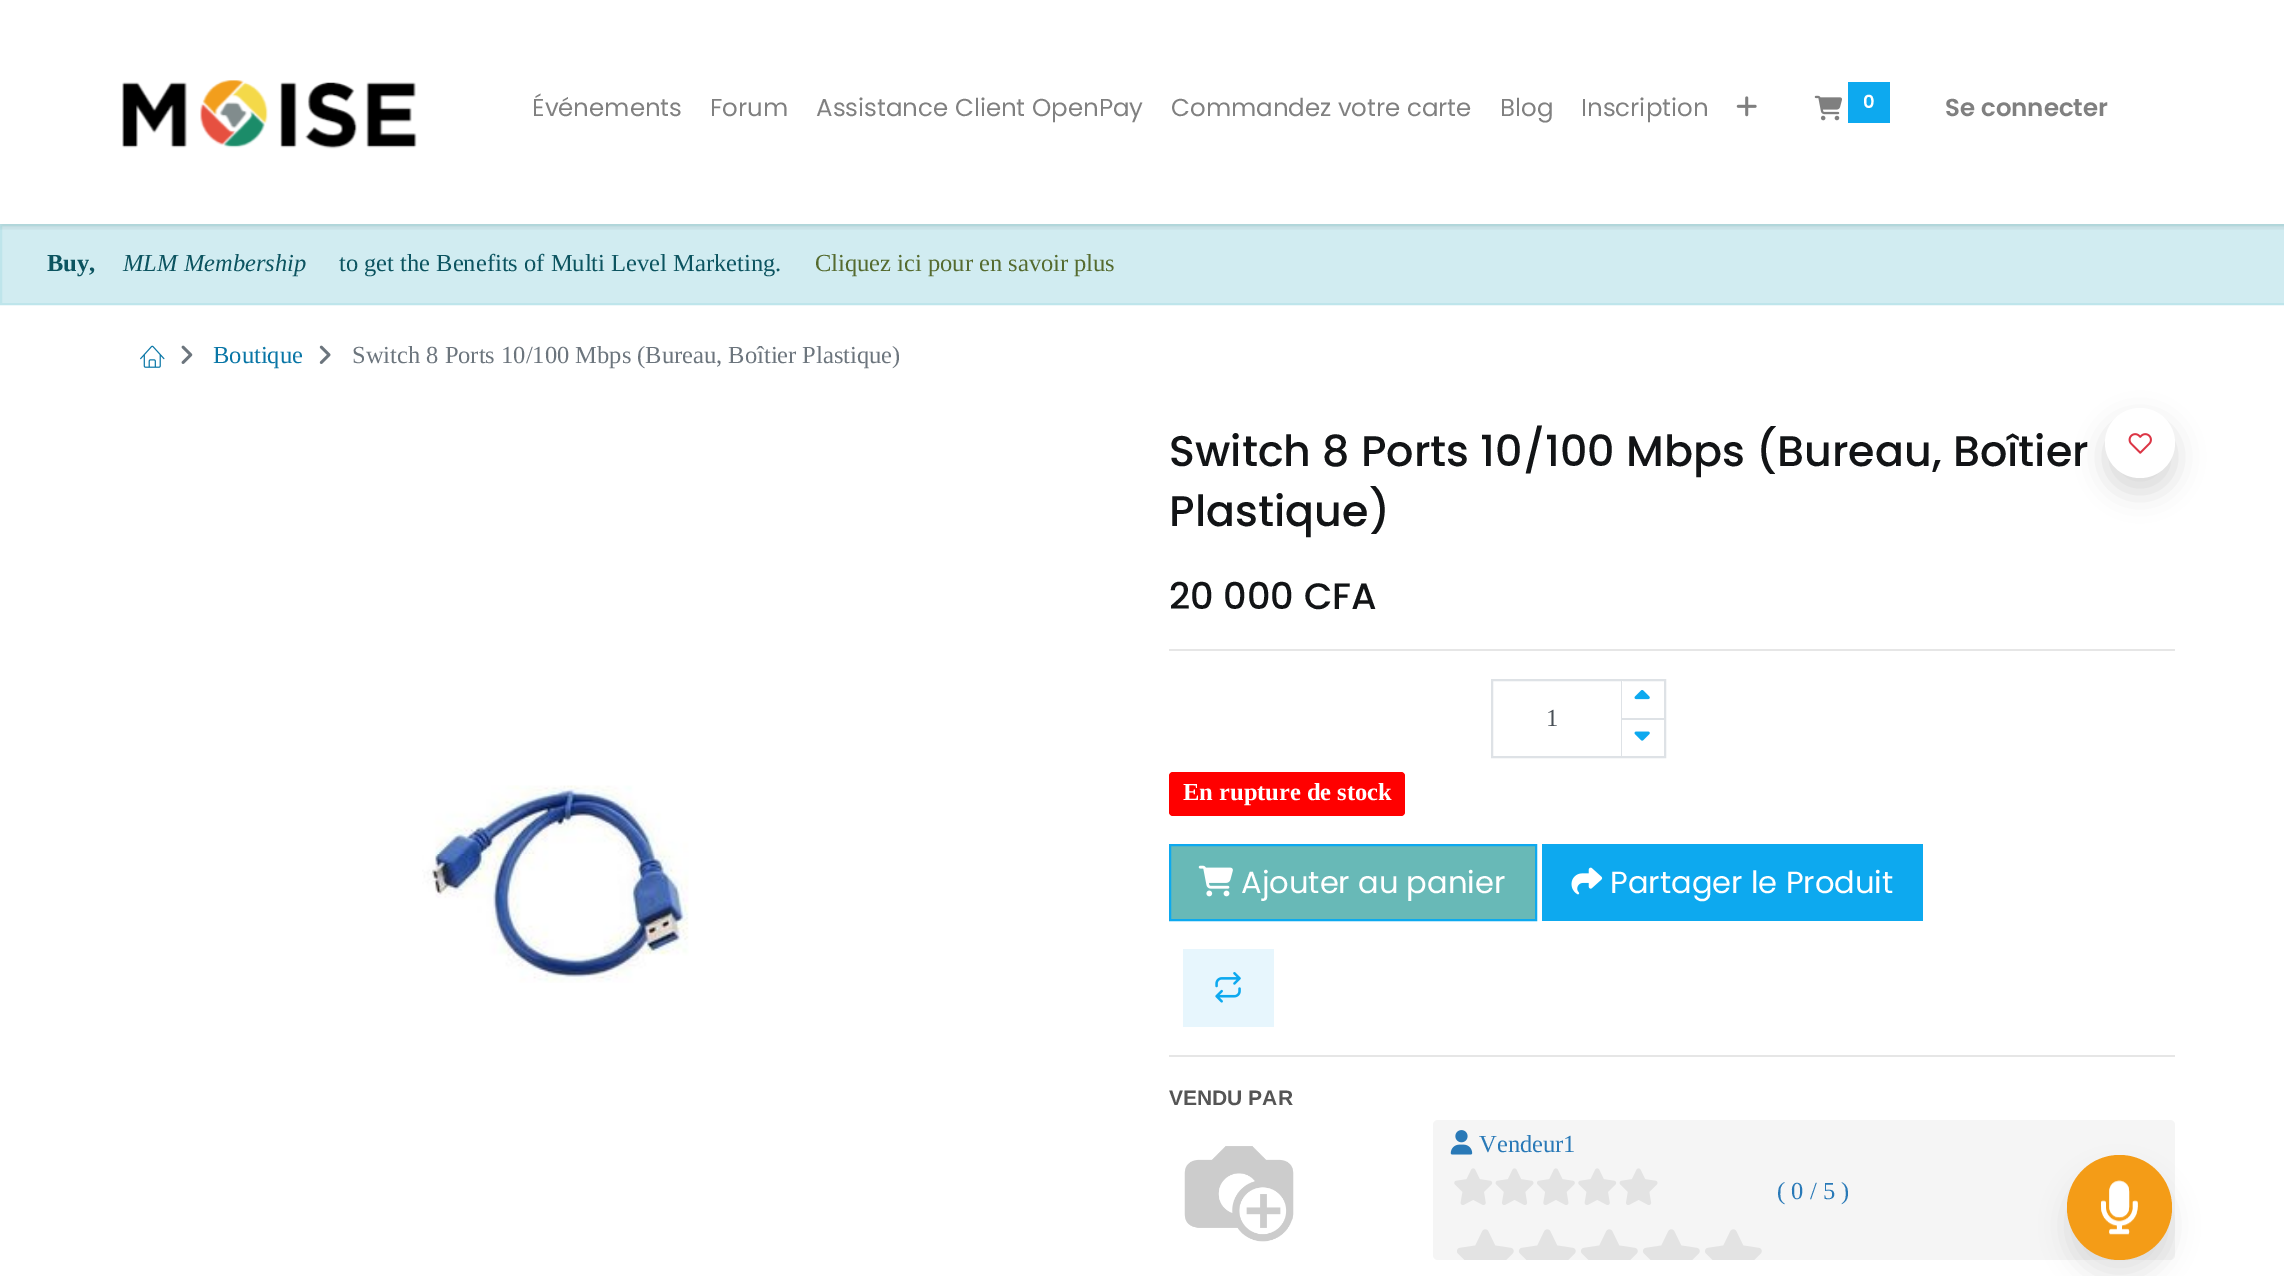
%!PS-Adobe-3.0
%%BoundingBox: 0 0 2284 1276
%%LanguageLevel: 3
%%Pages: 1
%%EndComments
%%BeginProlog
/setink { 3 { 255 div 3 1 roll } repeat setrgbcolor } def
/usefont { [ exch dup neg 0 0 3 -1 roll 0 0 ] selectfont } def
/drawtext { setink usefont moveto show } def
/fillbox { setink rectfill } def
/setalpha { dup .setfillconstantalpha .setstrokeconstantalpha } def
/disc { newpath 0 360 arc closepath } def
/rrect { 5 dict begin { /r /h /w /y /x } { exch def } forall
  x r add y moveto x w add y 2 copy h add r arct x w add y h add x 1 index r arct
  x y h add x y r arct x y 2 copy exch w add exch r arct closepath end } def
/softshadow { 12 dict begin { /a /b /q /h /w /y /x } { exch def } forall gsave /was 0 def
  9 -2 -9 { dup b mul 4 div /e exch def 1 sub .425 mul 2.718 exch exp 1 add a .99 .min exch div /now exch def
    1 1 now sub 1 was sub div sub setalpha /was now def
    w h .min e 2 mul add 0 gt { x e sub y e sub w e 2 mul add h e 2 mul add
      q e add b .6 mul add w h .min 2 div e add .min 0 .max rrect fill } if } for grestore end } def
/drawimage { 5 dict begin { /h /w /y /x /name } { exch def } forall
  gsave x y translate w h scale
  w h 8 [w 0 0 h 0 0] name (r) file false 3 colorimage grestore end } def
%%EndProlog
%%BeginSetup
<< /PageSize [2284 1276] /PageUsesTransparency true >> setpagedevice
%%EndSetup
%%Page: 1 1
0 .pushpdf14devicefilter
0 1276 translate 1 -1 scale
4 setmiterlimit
0 0 2284 1276 255 255 255 fillbox
209 236 241 setink
1 225 moveto 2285 225 lineto 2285 304 lineto 1 304 lineto closepath gsave fill grestore
190 229 235 setink
2 setlinewidth
stroke
gsave
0 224 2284 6 rectclip
0 0 0 setink
0 4 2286 224 0 3.5 0.07 softshadow
grestore
(assets/img1.rgb) 122 80 295 69 drawimage
(Événements) 532 116 /Poppins-Regular 24.5 128 128 128 drawtext
(Forum) 710 116 /Poppins-Regular 24.5 128 128 128 drawtext
(Assistance Client OpenPay) 816 116 /Poppins-Regular 24.5 128 128 128 drawtext
(Commandez votre carte) 1171 116 /Poppins-Regular 24.5 128 128 128 drawtext
(Blog) 1500 116 /Poppins-Regular 24.5 128 128 128 drawtext
(Inscription) 1581 116 /Poppins-Regular 24.5 128 128 128 drawtext
(assets/img2.rgb) 1736 96 21 21 drawimage
(assets/img3.rgb) 1814 95 28 26 drawimage
1848 82 42 41 13 169 239 fillbox
(0) 1863 108 /Poppins-SemiBold 18 255 255 255 drawtext
(Se connecter) 1945 116 /Poppins-SemiBold 24.5 128 128 128 drawtext
(Buy,) 47 271 /LiberationSerif-Bold 24.5 12 84 96 drawtext
(MLM Membership) 123 271 /LiberationSerif-Italic 24.5 12 84 96 drawtext
(to get the Benefits of Multi Level Marketing.) 339 271 /LiberationSerif-Regular 24.5 12 84 96 drawtext
(Cliquez ici pour en savoir plus) 815 271 /LiberationSerif-Regular 24.5 85 107 47 drawtext
(assets/img4.rgb) 140 345 25 23 drawimage
(assets/img5.rgb) 181 345 12 19 drawimage
(Boutique) 213 363 /LiberationSerif-Regular 24.5 9 118 166 drawtext
(assets/img6.rgb) 319 345 12 19 drawimage
(Switch 8 Ports 10/100 Mbps \(Bureau, Boîtier Plastique\)) 352 363 /LiberationSerif-Regular 24.5 108 117 125 drawtext
(assets/img7.rgb) 422 785 267 198 drawimage
(Switch 8 Ports 10/100 Mbps \(Bureau, Boîtier) 1169 466 /Poppins-Medium 42.9 18 20 22 drawtext
(Plastique\)) 1169 526 /Poppins-Medium 42.9 18 20 22 drawtext
0 0 0 setink
2105 422 70 70 35 14 0.15 softshadow
255 255 255 setink
2140 443 35 disc fill
(assets/img8.rgb) 2128 433 24 21 drawimage
1183 949 91 78 231 246 253 fillbox
(assets/img9.rgb) 1215 972 26 31 drawimage
(20 000 CFA) 1169 609 /Poppins-Medium 36.75 18 20 22 drawtext
1169 649 1006 2 230 230 230 fillbox
222 226 230 setink
1492 680 173 77 rectstroke
(1) 1546 726 /LiberationSerif-Regular 24.5 73 80 87 drawtext
1621 718 1 38 222 226 230 fillbox
1621 718 43 2 222 226 230 fillbox
1621 681 2 38 222 226 230 fillbox
1622 681 1 37 255 255 255 fillbox
(assets/img10.rgb) 1634 690 16 10 drawimage
(assets/img11.rgb) 1634 731 16 10 drawimage
255 0 0 setink
1169 772 236 44 4 rrect fill
(En rupture de stock) 1183 800 /LiberationSerif-Bold 24.5 255 255 255 drawtext
104 185 183 setink
1170 845 moveto 1536 845 lineto 1536 920 lineto 1170 920 lineto closepath gsave fill grestore
13 169 239 setink
stroke
(assets/img12.rgb) 1198 865 35 32 drawimage
(Ajouter au panier) 1241 893 /Poppins-Regular 30.6 255 255 255 drawtext
1542 844 381 77 13 169 239 fillbox
(assets/img13.rgb) 1571 867 32 28 drawimage
(Partager le Produit) 1610 893 /Poppins-Regular 30.6 255 255 255 drawtext
1169 1055 1006 2 230 230 230 fillbox
(VENDU PAR) 1169 1105 /LiberationSans-Bold 21 85 85 85 drawtext
(assets/img14.rgb) 1184 1146 110 96 drawimage
245 245 245 setink
1433 1120 742 140 5 rrect fill
(assets/img15.rgb) 1450 1130 23 25 drawimage
(Vendeur1) 1479 1152 /LiberationSerif-Regular 24.5 41 121 183 drawtext
(assets/img16.rgb) 1454 1168 204 37 drawimage
(assets/img17.rgb) 1457 1229 305 31 drawimage
(\( 0 / 5 \)) 1777 1199 /LiberationSerif-Regular 24.5 41 121 183 drawtext
0 0 0 setink
2067 1173 105 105 52.5 13 0.1 softshadow
244 156 23 setink
2119.5 1207.5 52.5 disc fill
(assets/img18.rgb) 2101 1180 37 55 drawimage
.poppdf14devicefilter showpage
%%EOF
